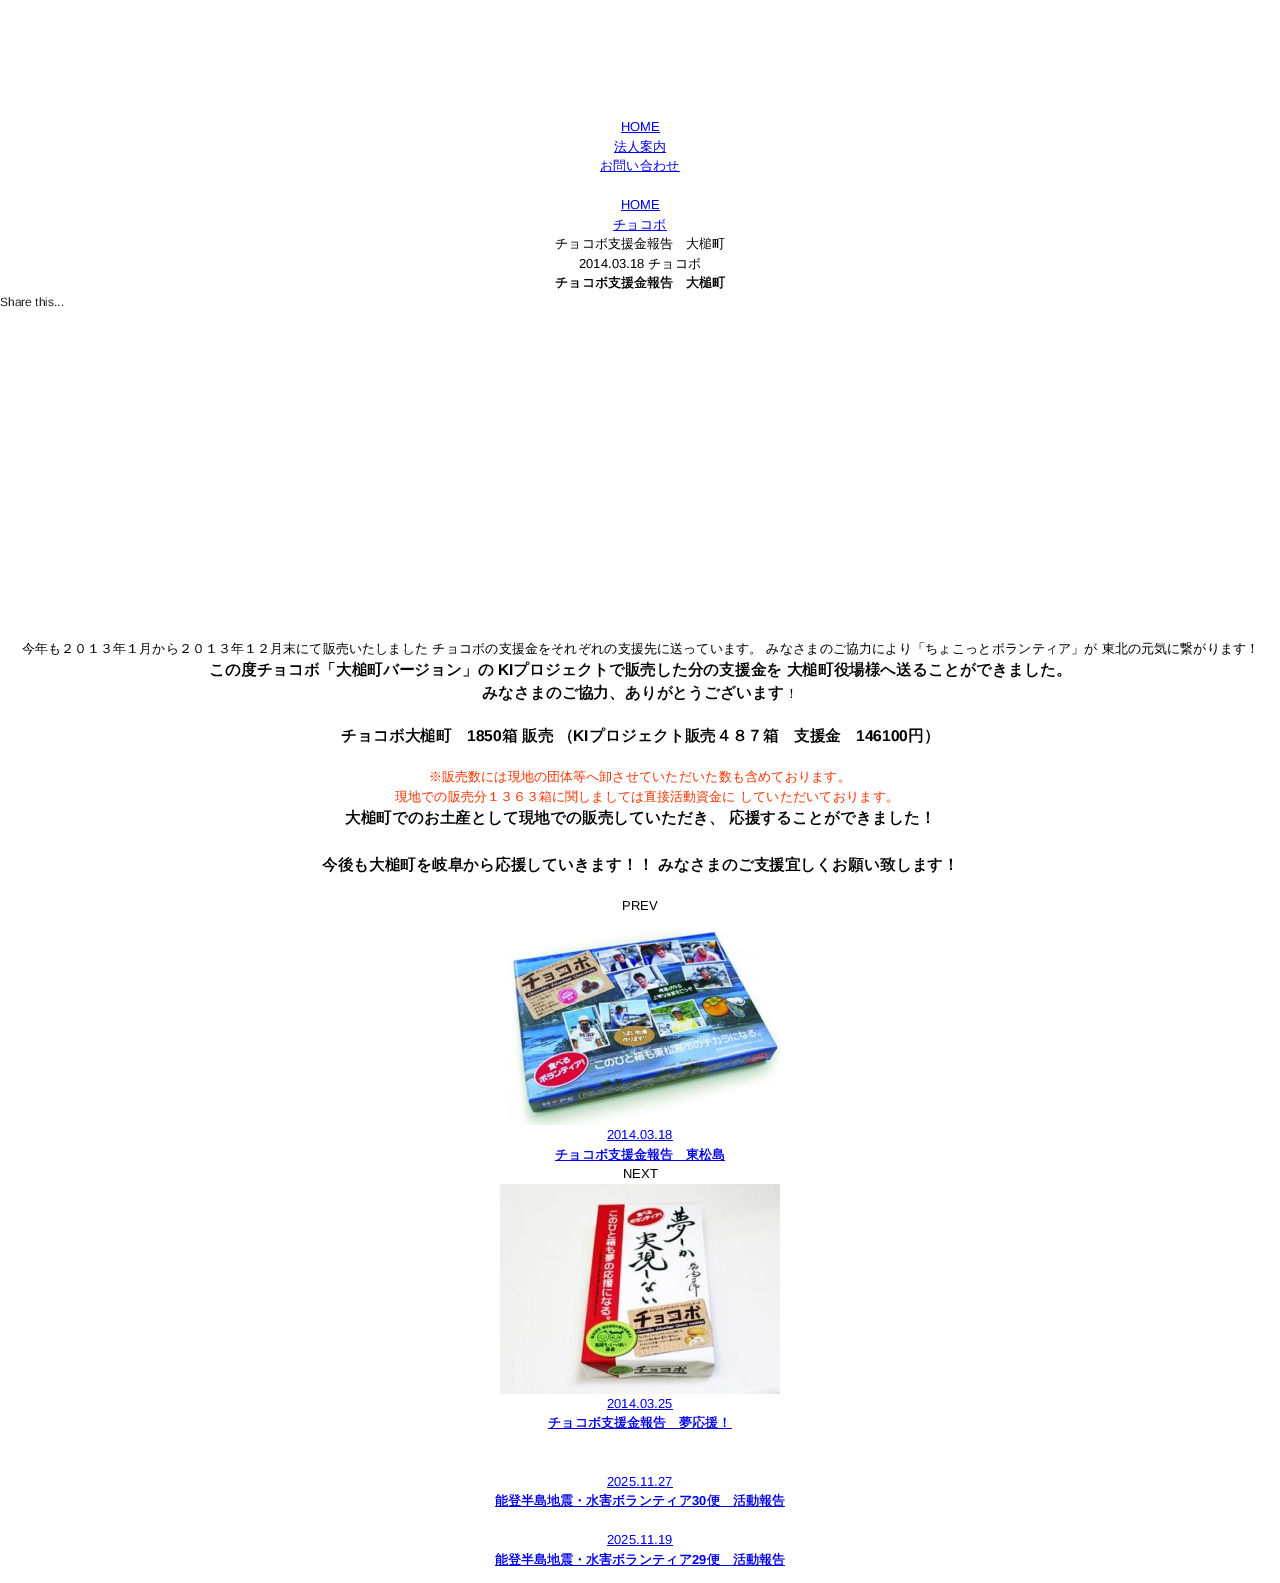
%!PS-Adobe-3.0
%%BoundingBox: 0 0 1280 1583
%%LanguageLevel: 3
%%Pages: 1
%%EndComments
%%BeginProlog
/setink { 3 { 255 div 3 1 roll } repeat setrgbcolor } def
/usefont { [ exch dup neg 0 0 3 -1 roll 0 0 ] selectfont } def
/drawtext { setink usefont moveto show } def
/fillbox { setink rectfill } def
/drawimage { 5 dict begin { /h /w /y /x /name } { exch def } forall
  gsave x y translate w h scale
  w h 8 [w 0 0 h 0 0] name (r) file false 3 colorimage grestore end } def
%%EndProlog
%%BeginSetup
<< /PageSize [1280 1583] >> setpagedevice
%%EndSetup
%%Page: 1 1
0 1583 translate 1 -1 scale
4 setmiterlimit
0 0 1280 1583 255 255 255 fillbox
(HOME) 621 131 /LiberationSans-Regular 13 0 0 238 drawtext
621 132 39 1 0 0 238 fillbox
614 152 52 1 0 0 238 fillbox
(法人案内) 614 151 /WenQuanYiZenHei-Medium 13 0 0 238 drawtext
600 171 80 1 0 0 238 fillbox
(お問い合わせ) 600 170 /WenQuanYiZenHei-Medium 13 0 0 238 drawtext
(HOME) 621 209 /LiberationSans-Regular 13 0 0 238 drawtext
621 210 39 1 0 0 238 fillbox
613 230 54 1 0 0 238 fillbox
(チョコボ) 613 229 /WenQuanYiZenHei-Medium 13 0 0 238 drawtext
(チョコボ支援金報告　大槌町) 555 248 /WenQuanYiZenHei-Medium 13 0 0 0 drawtext
(2014.03.18) 579 268 /LiberationSans-Regular 13 0 0 0 drawtext
(チョコボ) 648 268 /WenQuanYiZenHei-Medium 13 0 0 0 drawtext
(チョコボ支援金報告　大槌町) 555 287 /WenQuanYiZenHei-Bold 13 0 0 0 drawtext
(Share this...) 0 306 /LiberationSans-Regular 12 39 39 39 drawtext
(今年も２０１３年１月から２０１３年１２月末にて販売いたしました チョコボの支援金をそれぞれの支援先に送っています。 みなさまのご協力により「ちょこっとボランティア」が 東北の元気に繋がります！) 22 653 /WenQuanYiZenHei-Medium 13 0 0 0 drawtext
(この度チョコボ「大槌町バージョン」の) 209 675 /WenQuanYiZenHei-Bold 15.6 0 0 0 drawtext
(KI) 498 675 /LiberationSans-Bold 15.6 0 0 0 drawtext
(プロジェクトで販売した分の支援金を 大槌町役場様へ送ることができました。) 513 675 /WenQuanYiZenHei-Bold 15.6 0 0 0 drawtext
(みなさまのご協力、ありがとうございます) 482 698 /WenQuanYiZenHei-Bold 15.6 0 0 0 drawtext
(！) 785 698 /WenQuanYiZenHei-Medium 13 0 0 0 drawtext
(チョコボ大槌町) 341 741 /WenQuanYiZenHei-Bold 15.6 0 0 0 drawtext
(1850) 467 741 /LiberationSans-Bold 15.6 0 0 0 drawtext
(箱 販売 （) 502 741 /WenQuanYiZenHei-Bold 15.6 0 0 0 drawtext
(KI) 573 741 /LiberationSans-Bold 15.6 0 0 0 drawtext
(プロジェクト販売４８７箱　支援金) 589 741 /WenQuanYiZenHei-Bold 15.6 0 0 0 drawtext
(146100) 856 741 /LiberationSans-Bold 15.6 0 0 0 drawtext
(円）) 908 741 /WenQuanYiZenHei-Bold 15.6 0 0 0 drawtext
(※販売数には現地の団体等へ卸させていただいた数も含めております。) 429 781 /WenQuanYiZenHei-Medium 13 255 51 0 drawtext
(現地での販売分１３６３箱に関しましては直接活動資金に していただいております。) 395 801 /WenQuanYiZenHei-Medium 13 255 51 0 drawtext
(大槌町でのお土産として現地での販売していただき、 応援することができました！) 345 823 /WenQuanYiZenHei-Bold 15.6 0 0 0 drawtext
(今後も大槌町を岐阜から応援していきます！！ みなさまのご支援宜しくお願い致します！) 322 870 /WenQuanYiZenHei-Bold 15.6 0 0 0 drawtext
(PREV) 622 910 /LiberationSans-Regular 13 0 0 0 drawtext
(assets/img1.rgb) 505 928 275 197 drawimage
(2014.03.18) 607 1139 /LiberationSans-Regular 13 0 0 238 drawtext
607 1140 66 1 0 0 238 fillbox
555 1160 170 1 0 0 238 fillbox
(チョコボ支援金報告　東松島) 555 1159 /WenQuanYiZenHei-Bold 13 0 0 238 drawtext
(NEXT) 623 1178 /LiberationSans-Regular 13 0 0 0 drawtext
(assets/img2.rgb) 500 1184 280 210 drawimage
(2014.03.25) 607 1408 /LiberationSans-Regular 13 0 0 238 drawtext
607 1409 66 1 0 0 238 fillbox
548 1428 184 1 0 0 238 fillbox
(チョコボ支援金報告　夢応援！) 548 1427 /WenQuanYiZenHei-Bold 13 0 0 238 drawtext
(2025.11.27) 607 1486 /LiberationSans-Regular 13 0 0 238 drawtext
607 1487 66 1 0 0 238 fillbox
495 1506 290 1 0 0 238 fillbox
(能登半島地震・水害ボランティア) 495 1505 /WenQuanYiZenHei-Bold 13 0 0 238 drawtext
(30) 692 1505 /LiberationSans-Bold 13 0 0 238 drawtext
(便　活動報告) 707 1505 /WenQuanYiZenHei-Bold 13 0 0 238 drawtext
(2025.11.19) 607 1544 /LiberationSans-Regular 13 0 0 238 drawtext
607 1545 66 1 0 0 238 fillbox
495 1565 290 1 0 0 238 fillbox
(能登半島地震・水害ボランティア) 495 1564 /WenQuanYiZenHei-Bold 13 0 0 238 drawtext
(29) 692 1564 /LiberationSans-Bold 13 0 0 238 drawtext
(便　活動報告) 707 1564 /WenQuanYiZenHei-Bold 13 0 0 238 drawtext
showpage
%%EOF
